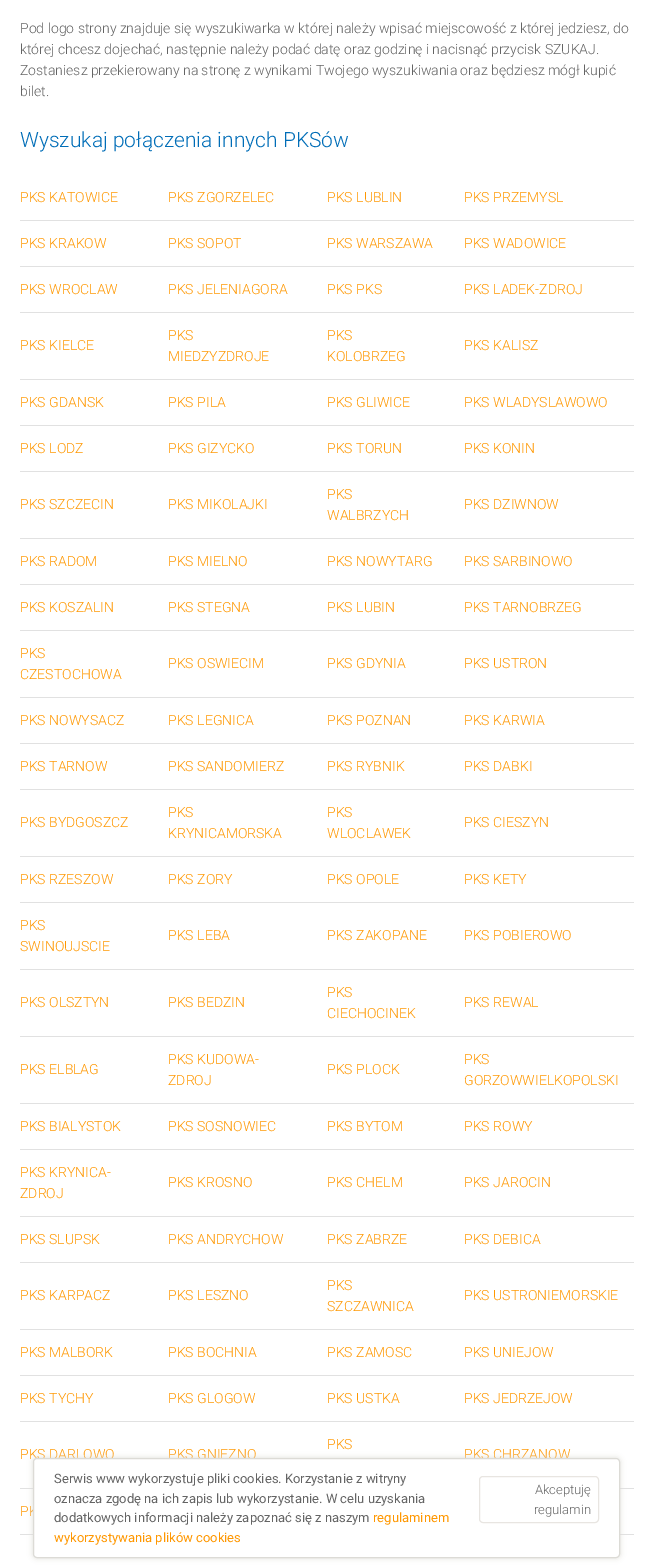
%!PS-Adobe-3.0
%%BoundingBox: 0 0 653 1568
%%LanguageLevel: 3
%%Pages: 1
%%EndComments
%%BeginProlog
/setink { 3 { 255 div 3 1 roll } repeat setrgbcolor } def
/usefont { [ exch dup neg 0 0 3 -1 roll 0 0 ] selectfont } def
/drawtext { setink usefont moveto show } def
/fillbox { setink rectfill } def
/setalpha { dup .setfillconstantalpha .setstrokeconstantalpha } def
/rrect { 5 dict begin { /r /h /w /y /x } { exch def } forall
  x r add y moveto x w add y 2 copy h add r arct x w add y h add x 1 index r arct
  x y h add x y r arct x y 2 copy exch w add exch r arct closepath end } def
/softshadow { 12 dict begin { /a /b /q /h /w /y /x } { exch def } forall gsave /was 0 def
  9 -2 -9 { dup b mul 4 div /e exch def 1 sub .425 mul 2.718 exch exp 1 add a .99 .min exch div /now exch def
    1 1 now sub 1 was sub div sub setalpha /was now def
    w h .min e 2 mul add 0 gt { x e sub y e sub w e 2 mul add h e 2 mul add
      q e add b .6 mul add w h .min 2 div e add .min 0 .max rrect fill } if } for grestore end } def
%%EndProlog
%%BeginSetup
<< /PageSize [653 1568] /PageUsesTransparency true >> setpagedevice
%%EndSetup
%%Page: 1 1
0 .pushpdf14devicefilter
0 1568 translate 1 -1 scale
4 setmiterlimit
0 0 653 1568 255 255 255 fillbox
(Pod logo strony znajduje się wyszukiwarka w której należy wpisać miejscowość z której jedziesz, do) 20 33 /Roboto-Light 14 100 100 100 drawtext
(której chcesz dojechać, następnie należy podać datę oraz godzinę i nacisnąć przycisk SZUKAJ.) 20 54 /Roboto-Light 14 100 100 100 drawtext
(Zostaniesz przekierowany na stronę z wynikami Twojego wyszukiwania oraz będziesz mógł kupić) 20 75 /Roboto-Light 14 100 100 100 drawtext
(bilet.) 20 96 /Roboto-Light 14 100 100 100 drawtext
(Wyszukaj połączenia innych PKSów) 20 147 /Roboto-Light 21 0 109 183 drawtext
(PKS KATOWICE) 20 202 /Roboto-Light 14 255 151 0 drawtext
(PKS ZGORZELEC) 168 202 /Roboto-Light 14 255 151 0 drawtext
(PKS LUBLIN) 327 202 /Roboto-Light 14 255 151 0 drawtext
20 220 614 1 225 225 225 fillbox
(PKS PRZEMYSL) 464 202 /Roboto-Light 14 255 151 0 drawtext
(PKS KRAKOW) 20 248 /Roboto-Light 14 255 151 0 drawtext
(PKS SOPOT) 168 248 /Roboto-Light 14 255 151 0 drawtext
(PKS WARSZAWA) 327 248 /Roboto-Light 14 255 151 0 drawtext
20 266 614 1 225 225 225 fillbox
(PKS WADOWICE) 464 248 /Roboto-Light 14 255 151 0 drawtext
(PKS WROCLAW) 20 294 /Roboto-Light 14 255 151 0 drawtext
(PKS JELENIAGORA) 168 294 /Roboto-Light 14 255 151 0 drawtext
(PKS PKS) 327 294 /Roboto-Light 14 255 151 0 drawtext
20 312 614 1 225 225 225 fillbox
(PKS LADEK-ZDROJ) 464 294 /Roboto-Light 14 255 151 0 drawtext
(PKS KIELCE) 20 350 /Roboto-Light 14 255 151 0 drawtext
(PKS) 168 340 /Roboto-Light 14 255 151 0 drawtext
(MIEDZYZDROJE) 168 361 /Roboto-Light 14 255 151 0 drawtext
(PKS) 327 340 /Roboto-Light 14 255 151 0 drawtext
(KOLOBRZEG) 327 361 /Roboto-Light 14 255 151 0 drawtext
20 379 614 1 225 225 225 fillbox
(PKS KALISZ) 464 350 /Roboto-Light 14 255 151 0 drawtext
(PKS GDANSK) 20 407 /Roboto-Light 14 255 151 0 drawtext
(PKS PILA) 168 407 /Roboto-Light 14 255 151 0 drawtext
(PKS GLIWICE) 327 407 /Roboto-Light 14 255 151 0 drawtext
20 425 614 1 225 225 225 fillbox
(PKS WLADYSLAWOWO) 464 407 /Roboto-Light 14 255 151 0 drawtext
(PKS LODZ) 20 453 /Roboto-Light 14 255 151 0 drawtext
(PKS GIZYCKO) 168 453 /Roboto-Light 14 255 151 0 drawtext
(PKS TORUN) 327 453 /Roboto-Light 14 255 151 0 drawtext
20 471 614 1 225 225 225 fillbox
(PKS KONIN) 464 453 /Roboto-Light 14 255 151 0 drawtext
(PKS SZCZECIN) 20 509 /Roboto-Light 14 255 151 0 drawtext
(PKS MIKOLAJKI) 168 509 /Roboto-Light 14 255 151 0 drawtext
(PKS) 327 499 /Roboto-Light 14 255 151 0 drawtext
(WALBRZYCH) 327 520 /Roboto-Light 14 255 151 0 drawtext
20 538 614 1 225 225 225 fillbox
(PKS DZIWNOW) 464 509 /Roboto-Light 14 255 151 0 drawtext
(PKS RADOM) 20 566 /Roboto-Light 14 255 151 0 drawtext
(PKS MIELNO) 168 566 /Roboto-Light 14 255 151 0 drawtext
(PKS NOWYTARG) 327 566 /Roboto-Light 14 255 151 0 drawtext
20 584 614 1 225 225 225 fillbox
(PKS SARBINOWO) 464 566 /Roboto-Light 14 255 151 0 drawtext
(PKS KOSZALIN) 20 612 /Roboto-Light 14 255 151 0 drawtext
(PKS STEGNA) 168 612 /Roboto-Light 14 255 151 0 drawtext
(PKS LUBIN) 327 612 /Roboto-Light 14 255 151 0 drawtext
20 630 614 1 225 225 225 fillbox
(PKS TARNOBRZEG) 464 612 /Roboto-Light 14 255 151 0 drawtext
(PKS) 20 658 /Roboto-Light 14 255 151 0 drawtext
(CZESTOCHOWA) 20 679 /Roboto-Light 14 255 151 0 drawtext
(PKS OSWIECIM) 168 668 /Roboto-Light 14 255 151 0 drawtext
(PKS GDYNIA) 327 668 /Roboto-Light 14 255 151 0 drawtext
20 697 614 1 225 225 225 fillbox
(PKS USTRON) 464 668 /Roboto-Light 14 255 151 0 drawtext
(PKS NOWYSACZ) 20 725 /Roboto-Light 14 255 151 0 drawtext
(PKS LEGNICA) 168 725 /Roboto-Light 14 255 151 0 drawtext
(PKS POZNAN) 327 725 /Roboto-Light 14 255 151 0 drawtext
20 743 614 1 225 225 225 fillbox
(PKS KARWIA) 464 725 /Roboto-Light 14 255 151 0 drawtext
(PKS TARNOW) 20 771 /Roboto-Light 14 255 151 0 drawtext
(PKS SANDOMIERZ) 168 771 /Roboto-Light 14 255 151 0 drawtext
(PKS RYBNIK) 327 771 /Roboto-Light 14 255 151 0 drawtext
20 789 614 1 225 225 225 fillbox
(PKS DABKI) 464 771 /Roboto-Light 14 255 151 0 drawtext
(PKS BYDGOSZCZ) 20 827 /Roboto-Light 14 255 151 0 drawtext
(PKS) 168 817 /Roboto-Light 14 255 151 0 drawtext
(KRYNICAMORSKA) 168 838 /Roboto-Light 14 255 151 0 drawtext
(PKS) 327 817 /Roboto-Light 14 255 151 0 drawtext
(WLOCLAWEK) 327 838 /Roboto-Light 14 255 151 0 drawtext
20 856 614 1 225 225 225 fillbox
(PKS CIESZYN) 464 827 /Roboto-Light 14 255 151 0 drawtext
(PKS RZESZOW) 20 884 /Roboto-Light 14 255 151 0 drawtext
(PKS ZORY) 168 884 /Roboto-Light 14 255 151 0 drawtext
(PKS OPOLE) 327 884 /Roboto-Light 14 255 151 0 drawtext
20 902 614 1 225 225 225 fillbox
(PKS KETY) 464 884 /Roboto-Light 14 255 151 0 drawtext
(PKS) 20 930 /Roboto-Light 14 255 151 0 drawtext
(SWINOUJSCIE) 20 951 /Roboto-Light 14 255 151 0 drawtext
(PKS LEBA) 168 940 /Roboto-Light 14 255 151 0 drawtext
(PKS ZAKOPANE) 327 940 /Roboto-Light 14 255 151 0 drawtext
20 969 614 1 225 225 225 fillbox
(PKS POBIEROWO) 464 940 /Roboto-Light 14 255 151 0 drawtext
(PKS OLSZTYN) 20 1007 /Roboto-Light 14 255 151 0 drawtext
(PKS BEDZIN) 168 1007 /Roboto-Light 14 255 151 0 drawtext
(PKS) 327 997 /Roboto-Light 14 255 151 0 drawtext
(CIECHOCINEK) 327 1018 /Roboto-Light 14 255 151 0 drawtext
20 1036 614 1 225 225 225 fillbox
(PKS REWAL) 464 1007 /Roboto-Light 14 255 151 0 drawtext
(PKS ELBLAG) 20 1074 /Roboto-Light 14 255 151 0 drawtext
(PKS KUDOWA-) 168 1064 /Roboto-Light 14 255 151 0 drawtext
(ZDROJ) 168 1085 /Roboto-Light 14 255 151 0 drawtext
(PKS PLOCK) 327 1074 /Roboto-Light 14 255 151 0 drawtext
20 1103 614 1 225 225 225 fillbox
(PKS) 464 1064 /Roboto-Light 14 255 151 0 drawtext
(GORZOWWIELKOPOLSKI) 464 1085 /Roboto-Light 14 255 151 0 drawtext
(PKS BIALYSTOK) 20 1131 /Roboto-Light 14 255 151 0 drawtext
(PKS SOSNOWIEC) 168 1131 /Roboto-Light 14 255 151 0 drawtext
(PKS BYTOM) 327 1131 /Roboto-Light 14 255 151 0 drawtext
20 1149 614 1 225 225 225 fillbox
(PKS ROWY) 464 1131 /Roboto-Light 14 255 151 0 drawtext
(PKS KRYNICA-) 20 1177 /Roboto-Light 14 255 151 0 drawtext
(ZDROJ) 20 1198 /Roboto-Light 14 255 151 0 drawtext
(PKS KROSNO) 168 1187 /Roboto-Light 14 255 151 0 drawtext
(PKS CHELM) 327 1187 /Roboto-Light 14 255 151 0 drawtext
20 1216 614 1 225 225 225 fillbox
(PKS JAROCIN) 464 1187 /Roboto-Light 14 255 151 0 drawtext
(PKS SLUPSK) 20 1244 /Roboto-Light 14 255 151 0 drawtext
(PKS ANDRYCHOW) 168 1244 /Roboto-Light 14 255 151 0 drawtext
(PKS ZABRZE) 327 1244 /Roboto-Light 14 255 151 0 drawtext
20 1262 614 1 225 225 225 fillbox
(PKS DEBICA) 464 1244 /Roboto-Light 14 255 151 0 drawtext
(PKS KARPACZ) 20 1300 /Roboto-Light 14 255 151 0 drawtext
(PKS LESZNO) 168 1300 /Roboto-Light 14 255 151 0 drawtext
(PKS) 327 1290 /Roboto-Light 14 255 151 0 drawtext
(SZCZAWNICA) 327 1311 /Roboto-Light 14 255 151 0 drawtext
20 1329 614 1 225 225 225 fillbox
(PKS USTRONIEMORSKIE) 464 1300 /Roboto-Light 14 255 151 0 drawtext
(PKS MALBORK) 20 1357 /Roboto-Light 14 255 151 0 drawtext
(PKS BOCHNIA) 168 1357 /Roboto-Light 14 255 151 0 drawtext
(PKS ZAMOSC) 327 1357 /Roboto-Light 14 255 151 0 drawtext
20 1375 614 1 225 225 225 fillbox
(PKS UNIEJOW) 464 1357 /Roboto-Light 14 255 151 0 drawtext
(PKS TYCHY) 20 1403 /Roboto-Light 14 255 151 0 drawtext
(PKS GLOGOW) 168 1403 /Roboto-Light 14 255 151 0 drawtext
(PKS USTKA) 327 1403 /Roboto-Light 14 255 151 0 drawtext
20 1421 614 1 225 225 225 fillbox
(PKS JEDRZEJOW) 464 1403 /Roboto-Light 14 255 151 0 drawtext
(PKS) 327 1449 /Roboto-Light 14 255 151 0 drawtext
20 1488 13 1 225 225 225 fillbox
(PKS DARLOWO) 20 1459 /Roboto-Light 14 255 151 0 drawtext
(PKS GNIEZNO) 168 1459 /Roboto-Light 14 255 151 0 drawtext
620 1488 14 1 225 225 225 fillbox
(PKS CHRZANOW) 464 1459 /Roboto-Light 14 255 151 0 drawtext
20 1534 13 1 225 225 225 fillbox
(PK) 20 1516 /Roboto-Light 14 255 151 0 drawtext
620 1534 14 1 225 225 225 fillbox
220 219 214 setink
33 1458 587 100 4 3 1 softshadow
255 255 255 setink
33.5 1458.5 586 99 3.5 rrect gsave fill grestore
220 219 214 setink
stroke
(Serwis www wykorzystuje pliki cookies. Korzystanie z witryny) 54 1483 /Roboto-Regular 13 100 100 100 drawtext
(oznacza zgodę na ich zapis lub wykorzystanie. W celu uzyskania) 54 1503 /Roboto-Regular 13 100 100 100 drawtext
(dodatkowych informacji należy zapoznać się z naszym) 54 1522 /Roboto-Regular 13 100 100 100 drawtext
(regulaminem) 373 1522 /Roboto-Regular 13 255 151 0 drawtext
(wykorzystywania plików cookies) 54 1542 /Roboto-Regular 13 255 151 0 drawtext
232 229 225 setink
479.5 1476.5 119 46 3.5 rrect stroke
(Akceptuję) 535 1494 /Roboto-Light 13 100 100 100 drawtext
(regulamin) 534 1514 /Roboto-Light 13 100 100 100 drawtext
.poppdf14devicefilter showpage
%%EOF
